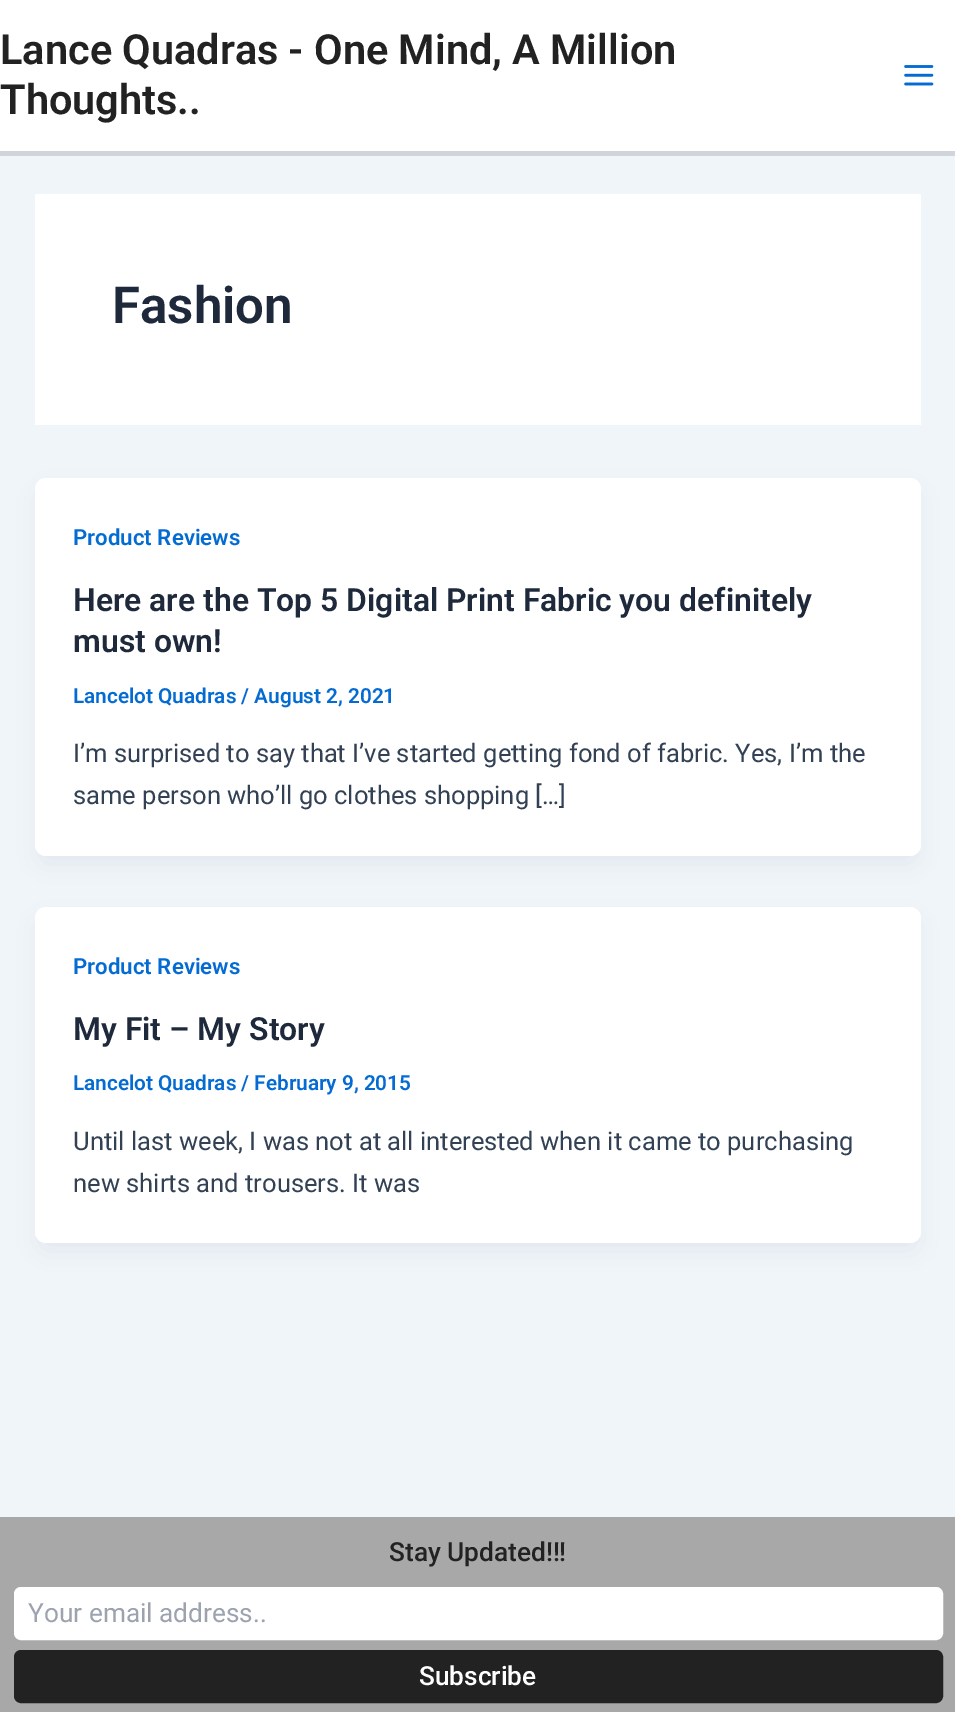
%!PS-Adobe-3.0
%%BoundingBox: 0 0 955 1712
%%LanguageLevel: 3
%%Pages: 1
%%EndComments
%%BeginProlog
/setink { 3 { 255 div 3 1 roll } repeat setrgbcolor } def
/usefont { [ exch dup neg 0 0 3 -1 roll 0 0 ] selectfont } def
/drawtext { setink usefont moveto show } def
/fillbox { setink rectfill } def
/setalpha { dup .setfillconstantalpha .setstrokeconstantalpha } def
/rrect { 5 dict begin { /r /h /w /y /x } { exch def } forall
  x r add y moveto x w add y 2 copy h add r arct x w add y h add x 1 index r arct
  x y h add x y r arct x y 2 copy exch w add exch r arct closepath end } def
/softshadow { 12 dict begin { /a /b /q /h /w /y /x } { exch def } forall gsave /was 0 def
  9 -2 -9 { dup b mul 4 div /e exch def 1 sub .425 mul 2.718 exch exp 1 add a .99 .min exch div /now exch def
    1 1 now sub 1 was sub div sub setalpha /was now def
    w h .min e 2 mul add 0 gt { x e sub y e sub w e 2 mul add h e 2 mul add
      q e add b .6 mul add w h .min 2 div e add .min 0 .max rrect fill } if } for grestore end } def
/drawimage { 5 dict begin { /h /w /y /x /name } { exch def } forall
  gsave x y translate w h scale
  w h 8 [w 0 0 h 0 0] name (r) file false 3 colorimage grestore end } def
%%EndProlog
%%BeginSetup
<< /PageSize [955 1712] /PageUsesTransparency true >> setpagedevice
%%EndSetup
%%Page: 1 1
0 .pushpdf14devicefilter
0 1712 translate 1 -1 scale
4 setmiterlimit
0 0 955 1712 240 245 250 fillbox
0 0 955 151 255 255 255 fillbox
0 151 955 5 209 213 219 fillbox
(Lance Quadras - One Mind, A Million) 0 64 /Roboto-SemiBold 41.5 34 34 34 drawtext
(Thoughts..) 0 114 /Roboto-SemiBold 41.5 34 34 34 drawtext
(assets/img1.rgb) 904 65 30 21 drawimage
35 194 886 231 255 255 255 fillbox
(Fashion) 112 323 /Roboto-SemiBold 51 30 41 59 drawtext
16 24 40 setink
39 492 878 371 7 13 0.05 softshadow
255 255 255 setink
35 478 886 378 11 rrect fill
(Product Reviews) 73 545 /Roboto-SemiBold 22.25 4 107 210 drawtext
(Here are the Top 5 Digital Print Fabric you definitely) 73 611 /Roboto-SemiBold 31.9 30 41 59 drawtext
(must own!) 73 652 /Roboto-SemiBold 31.9 30 41 59 drawtext
(Lancelot Quadras / August 2, 2021) 73 703 /Roboto-SemiBold 20.75 4 107 210 drawtext
(I’m surprised to say that I’ve started getting fond of fabric. Yes, I’m the) 73 762 /Roboto-Regular 25.55 51 65 85 drawtext
(same person who’ll go clothes shopping […]) 73 804 /Roboto-Regular 25.55 51 65 85 drawtext
16 24 40 setink
39 921 878 329 7 13 0.05 softshadow
255 255 255 setink
35 907 886 336 11 rrect fill
(Product Reviews) 73 974 /Roboto-SemiBold 22.25 4 107 210 drawtext
(My Fit – My Story) 73 1040 /Roboto-SemiBold 31.9 30 41 59 drawtext
(Lancelot Quadras / February 9, 2015) 73 1090 /Roboto-SemiBold 20.75 4 107 210 drawtext
(Until last week, I was not at all interested when it came to purchasing) 73 1150 /Roboto-Regular 25.55 51 65 85 drawtext
(new shirts and trousers. It was) 73 1192 /Roboto-Regular 25.55 51 65 85 drawtext
0 1517 955 195 168 168 168 fillbox
(Stay Updated!!!) 389 1561 /Roboto-Medium 26.25 34 34 34 drawtext
255 255 255 setink
15 1588 927 51 6 rrect gsave fill grestore
2 setlinewidth
stroke
(Your email address..) 28 1622 /Roboto-Regular 26.25 156 163 175 drawtext
34 34 34 setink
15 1651 927 51 6 rrect gsave fill grestore
stroke
(Subscribe) 419 1685 /Roboto-Medium 26.25 255 255 255 drawtext
.poppdf14devicefilter showpage
%%EOF
